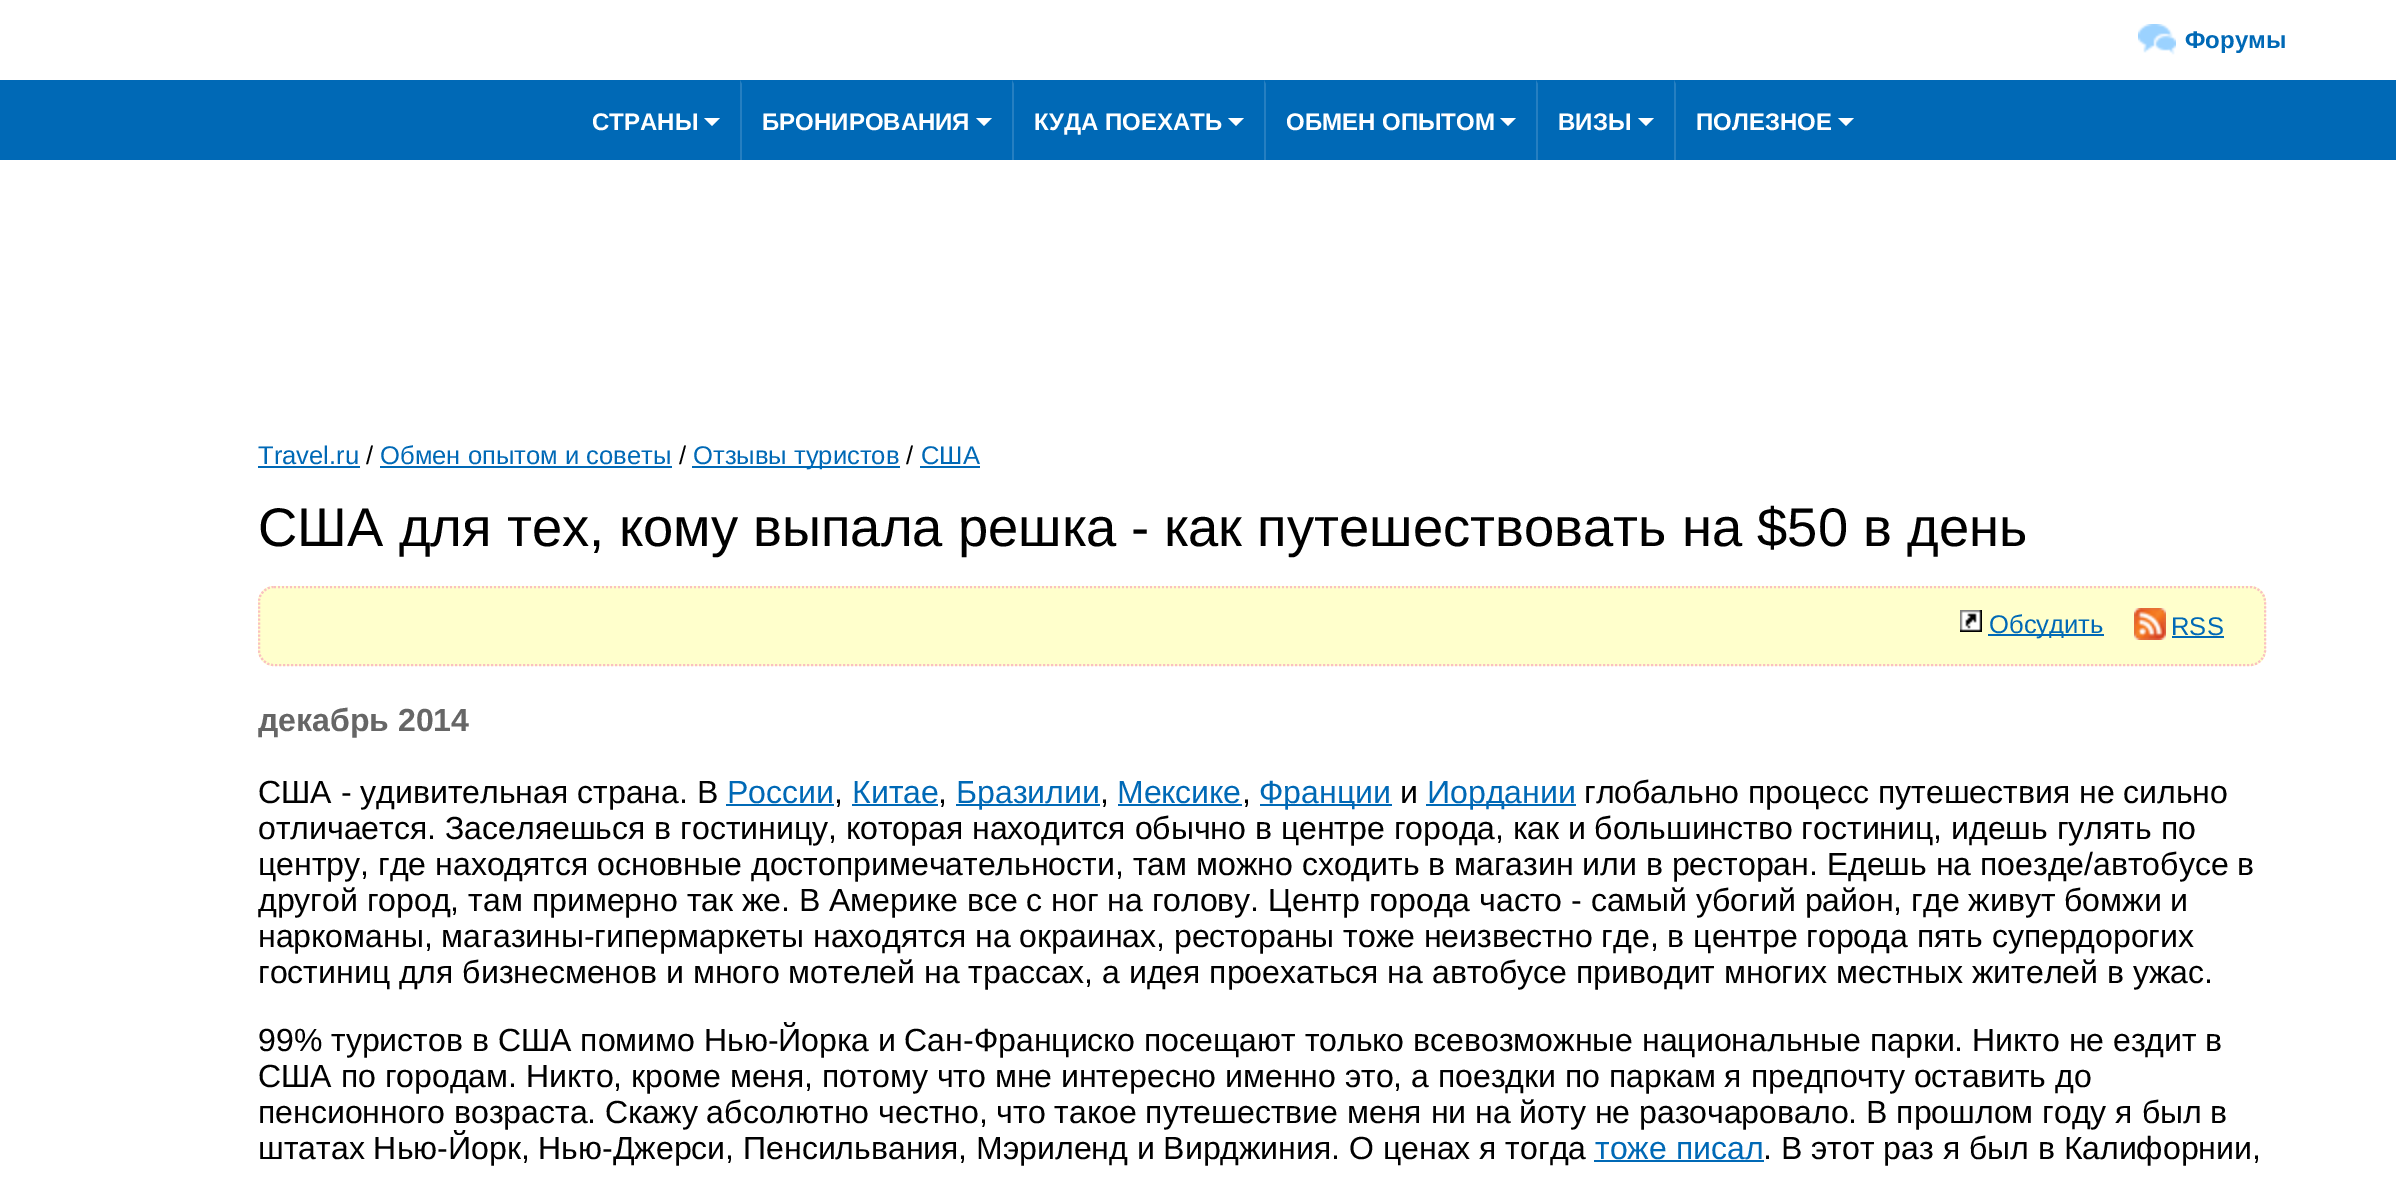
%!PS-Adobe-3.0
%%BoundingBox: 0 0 2396 1188
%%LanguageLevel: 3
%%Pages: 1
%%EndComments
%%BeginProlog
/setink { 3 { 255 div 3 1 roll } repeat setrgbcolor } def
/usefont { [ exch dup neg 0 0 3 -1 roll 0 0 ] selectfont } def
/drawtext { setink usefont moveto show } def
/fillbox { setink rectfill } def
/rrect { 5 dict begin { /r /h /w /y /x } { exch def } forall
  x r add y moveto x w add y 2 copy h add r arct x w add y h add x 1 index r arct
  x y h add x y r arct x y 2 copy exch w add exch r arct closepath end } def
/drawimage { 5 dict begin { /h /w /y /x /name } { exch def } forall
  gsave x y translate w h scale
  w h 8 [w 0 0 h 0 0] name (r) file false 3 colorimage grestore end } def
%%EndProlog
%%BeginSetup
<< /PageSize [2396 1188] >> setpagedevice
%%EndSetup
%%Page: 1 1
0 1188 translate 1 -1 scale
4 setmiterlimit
0 0 2396 1188 255 255 255 fillbox
(assets/img1.rgb) 2138 24 38 31 drawimage
(Форумы) 2185 48 /LiberationSans-Bold 24 0 105 182 drawtext
0 80 2396 80 0 105 182 fillbox
(СТРАНЫ) 592 130 /LiberationSans-Bold 24 255 255 255 drawtext
704 118 moveto 720 118 lineto 712 126 lineto closepath fill
38 127 193 setink
740 160 moveto 740 80 lineto 742 84 lineto 742 160 lineto closepath fill
(БРОНИРОВАНИЯ) 762 130 /LiberationSans-Bold 24 255 255 255 drawtext
976 118 moveto 992 118 lineto 984 126 lineto closepath fill
38 127 193 setink
1012 160 moveto 1012 80 lineto 1014 84 lineto 1014 160 lineto closepath fill
(КУДА ПОЕХАТЬ) 1034 130 /LiberationSans-Bold 24 255 255 255 drawtext
1228 118 moveto 1244 118 lineto 1236 126 lineto closepath fill
38 127 193 setink
1264 160 moveto 1264 80 lineto 1266 84 lineto 1266 160 lineto closepath fill
(ОБМЕН ОПЫТОМ) 1286 130 /LiberationSans-Bold 24 255 255 255 drawtext
1500 118 moveto 1516 118 lineto 1508 126 lineto closepath fill
38 127 193 setink
1536 160 moveto 1536 80 lineto 1538 84 lineto 1538 160 lineto closepath fill
(ВИЗЫ) 1558 130 /LiberationSans-Bold 24 255 255 255 drawtext
1638 118 moveto 1654 118 lineto 1646 126 lineto closepath fill
38 127 193 setink
1674 160 moveto 1674 80 lineto 1676 84 lineto 1676 160 lineto closepath fill
(ПОЛЕЗНОЕ) 1696 130 /LiberationSans-Bold 24 255 255 255 drawtext
1838 118 moveto 1854 118 lineto 1846 126 lineto closepath fill
(Travel.ru) 258 464 /LiberationSans-Regular 25.6 0 105 182 drawtext
258 466 102 2 0 105 182 fillbox
(/) 366 464 /LiberationSans-Regular 25.6 0 0 0 drawtext
(Обмен опытом и советы) 380 464 /LiberationSans-Regular 25.6 0 105 182 drawtext
380 466 292 2 0 105 182 fillbox
(/) 679 464 /LiberationSans-Regular 25.6 0 0 0 drawtext
692 466 208 2 0 105 182 fillbox
(Отзывы туристов) 693 464 /LiberationSans-Regular 25.6 0 105 182 drawtext
(/) 906 464 /LiberationSans-Regular 25.6 0 0 0 drawtext
(США) 921 464 /LiberationSans-Regular 25.6 0 105 182 drawtext
920 466 60 2 0 105 182 fillbox
(США для тех, кому выпала решка - как путешествовать на $50 в день) 258 546 /LiberationSans-Regular 54.4 0 0 0 drawtext
255 255 204 setink
258 586 2008 80 16 rrect fill
250 192 193 setink
2 setlinewidth
[2 2] 0 setdash
274 587 moveto 2250 587 lineto 2258.5 587 2265 593.5 2265 602 curveto 2265 650 lineto 2265 658.5 2258.5 665 2250 665 curveto 274 665 lineto 265.5 665 259 658.5 259 650 curveto 259 602 lineto 259 593.5 265.5 587 274 587 curveto closepath stroke
(assets/img2.rgb) 1960 610 22 22 drawimage
1988 634 116 2 0 105 182 fillbox
(Обсудить) 1989 633 /LiberationSans-Regular 25.6 0 105 182 drawtext
(assets/img3.rgb) 2134 608 32 32 drawimage
(RSS) 2171 635 /LiberationSans-Regular 25.6 0 105 182 drawtext
2172 636 52 2 0 105 182 fillbox
(декабрь 2014) 258 731 /LiberationSans-Bold 32 102 102 102 drawtext
(США - удивительная страна. В) 258 803 /LiberationSans-Regular 32 0 0 0 drawtext
(России) 727 803 /LiberationSans-Regular 32 0 105 182 drawtext
726 804 108 2 0 105 182 fillbox
(,) 834 803 /LiberationSans-Regular 32 0 0 0 drawtext
(Китае) 852 803 /LiberationSans-Regular 32 0 105 182 drawtext
852 804 86 2 0 105 182 fillbox
(,) 938 803 /LiberationSans-Regular 32 0 0 0 drawtext
956 804 144 2 0 105 182 fillbox
(Бразилии) 956 803 /LiberationSans-Regular 32 0 105 182 drawtext
(,) 1100 803 /LiberationSans-Regular 32 0 0 0 drawtext
(Мексике) 1117 803 /LiberationSans-Regular 32 0 105 182 drawtext
1118 804 124 2 0 105 182 fillbox
(,) 1242 803 /LiberationSans-Regular 32 0 0 0 drawtext
1260 804 132 2 0 105 182 fillbox
(Франции) 1259 803 /LiberationSans-Regular 32 0 105 182 drawtext
(и) 1400 803 /LiberationSans-Regular 32 0 0 0 drawtext
1426 804 150 2 0 105 182 fillbox
(Иордании) 1427 803 /LiberationSans-Regular 32 0 105 182 drawtext
(глобально процесс путешествия не сильно) 1584 803 /LiberationSans-Regular 32 0 0 0 drawtext
(отличается. Заселяешься в гостиницу, которая находится обычно в центре города, как и большинство гостиниц, идешь гулять по) 258 839 /LiberationSans-Regular 32 0 0 0 drawtext
(центру, где находятся основные достопримечательности, там можно сходить в магазин или в ресторан. Едешь на поезде/автобусе в) 258 875 /LiberationSans-Regular 32 0 0 0 drawtext
(другой город, там примерно так же. В Америке все с ног на голову. Центр города часто - самый убогий район, где живут бомжи и) 258 911 /LiberationSans-Regular 32 0 0 0 drawtext
(наркоманы, магазины-гипермаркеты находятся на окраинах, рестораны тоже неизвестно где, в центре города пять супердорогих) 258 947 /LiberationSans-Regular 32 0 0 0 drawtext
(гостиниц для бизнесменов и много мотелей на трассах, а идея проехаться на автобусе приводит многих местных жителей в ужас.) 258 983 /LiberationSans-Regular 32 0 0 0 drawtext
(99% туристов в США помимо Нью-Йорка и Сан-Франциско посещают только всевозможные национальные парки. Никто не ездит в) 258 1051 /LiberationSans-Regular 32 0 0 0 drawtext
(США по городам. Никто, кроме меня, потому что мне интересно именно это, а поездки по паркам я предпочту оставить до) 258 1087 /LiberationSans-Regular 32 0 0 0 drawtext
(пенсионного возраста. Скажу абсолютно честно, что такое путешествие меня ни на йоту не разочаровало. В прошлом году я был в) 258 1123 /LiberationSans-Regular 32 0 0 0 drawtext
(штатах Нью-Йорк, Нью-Джерси, Пенсильвания, Мэриленд и Вирджиния. О ценах я тогда) 258 1159 /LiberationSans-Regular 32 0 0 0 drawtext
(тоже писал) 1595 1159 /LiberationSans-Regular 32 0 105 182 drawtext
1594 1160 170 2 0 105 182 fillbox
(. В этот раз я был в Калифорнии,) 1763 1159 /LiberationSans-Regular 32 0 0 0 drawtext
showpage
%%EOF
